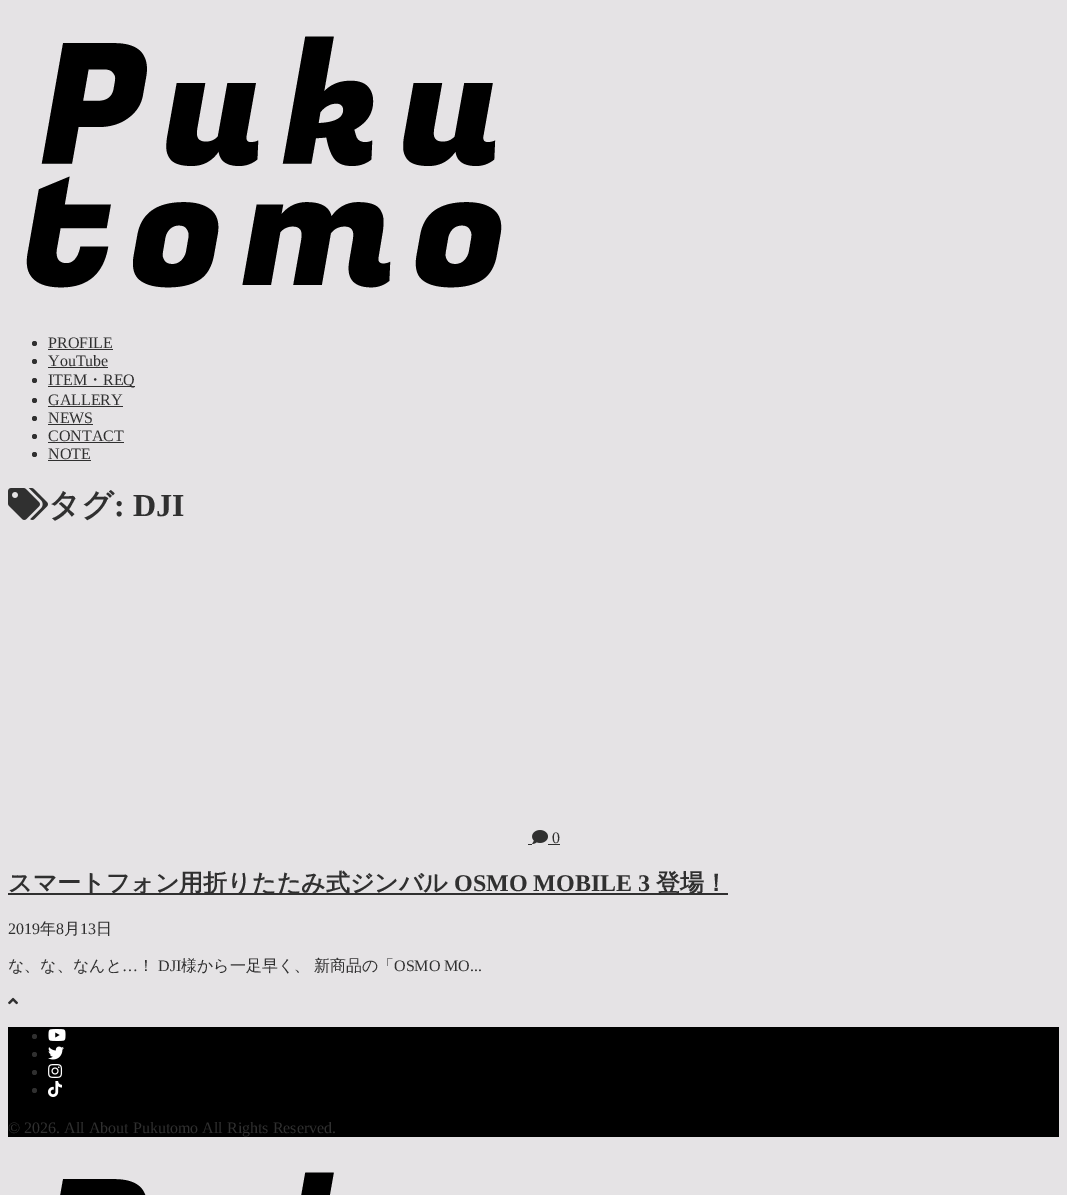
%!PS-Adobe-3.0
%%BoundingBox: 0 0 1067 1195
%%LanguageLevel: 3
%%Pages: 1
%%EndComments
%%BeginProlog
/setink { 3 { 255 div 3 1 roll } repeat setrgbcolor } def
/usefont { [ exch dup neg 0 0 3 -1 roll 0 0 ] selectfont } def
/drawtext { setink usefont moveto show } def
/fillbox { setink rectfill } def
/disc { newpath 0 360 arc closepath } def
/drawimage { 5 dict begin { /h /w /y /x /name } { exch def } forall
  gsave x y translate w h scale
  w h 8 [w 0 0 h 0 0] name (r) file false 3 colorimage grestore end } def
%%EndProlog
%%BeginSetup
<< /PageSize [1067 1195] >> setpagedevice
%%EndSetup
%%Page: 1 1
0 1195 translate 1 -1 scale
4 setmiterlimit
0 0 1067 1195 229 227 229 fillbox
(assets/img1.rgb) 26 36 476 252 drawimage
48 48 48 setink
34.5 343.5 2.5 disc fill
(PROFILE) 48 348 /LiberationSerif-Regular 16 48 48 48 drawtext
48 349 65 1 48 48 48 fillbox
34.5 361.5 2.5 disc fill
(YouTube) 48 366 /LiberationSerif-Regular 16 48 48 48 drawtext
48 367 60 1 48 48 48 fillbox
34.5 380.5 2.5 disc fill
(ITEM) 48 385 /LiberationSerif-Regular 16 48 48 48 drawtext
(・) 87 385 /WenQuanYiZenHei-Medium 16 48 48 48 drawtext
48 386 87 1 48 48 48 fillbox
(REQ) 103 385 /LiberationSerif-Regular 16 48 48 48 drawtext
34.5 400.5 2.5 disc fill
(GALLERY) 48 405 /LiberationSerif-Regular 16 48 48 48 drawtext
48 406 75 1 48 48 48 fillbox
34.5 418.5 2.5 disc fill
(NEWS) 48 423 /LiberationSerif-Regular 16 48 48 48 drawtext
48 424 45 1 48 48 48 fillbox
34.5 436.5 2.5 disc fill
(CONTACT) 48 441 /LiberationSerif-Regular 16 48 48 48 drawtext
48 442 76 1 48 48 48 fillbox
34.5 454.5 2.5 disc fill
(NOTE) 48 459 /LiberationSerif-Regular 16 48 48 48 drawtext
48 460 43 1 48 48 48 fillbox
(assets/img2.rgb) 8 488 40 32 drawimage
(タグ) 48 516 /WenQuanYiZenHei-Bold 32 48 48 48 drawtext
(: DJI) 114 516 /LiberationSerif-Bold 32 48 48 48 drawtext
(assets/img3.rgb) 532 830 16 14 drawimage
(0) 552 843 /LiberationSerif-Regular 16 48 48 48 drawtext
548 844 12 1 48 48 48 fillbox
528 844 4 1 48 48 48 fillbox
8 893 720 2 48 48 48 fillbox
(スマートフォン用折りたたみ式ジンバル) 8 891 /WenQuanYiZenHei-Bold 24 48 48 48 drawtext
(OSMO MOBILE 3) 454 891 /LiberationSerif-Bold 24 48 48 48 drawtext
(登場！) 656 891 /WenQuanYiZenHei-Bold 24 48 48 48 drawtext
(2019) 8 934 /LiberationSerif-Regular 16 48 48 48 drawtext
(年) 40 934 /WenQuanYiZenHei-Medium 16 48 48 48 drawtext
(8) 56 934 /LiberationSerif-Regular 16 48 48 48 drawtext
(月) 64 934 /WenQuanYiZenHei-Medium 16 48 48 48 drawtext
(13) 80 934 /LiberationSerif-Regular 16 48 48 48 drawtext
(日) 96 934 /WenQuanYiZenHei-Medium 16 48 48 48 drawtext
(な、な、なんと) 8 971 /WenQuanYiZenHei-Medium 16 48 48 48 drawtext
(…) 122 971 /LiberationSerif-Regular 16 48 48 48 drawtext
(！) 138 971 /WenQuanYiZenHei-Medium 16 48 48 48 drawtext
(DJI) 158 971 /LiberationSerif-Regular 16 48 48 48 drawtext
(様から一足早く、) 181 971 /WenQuanYiZenHei-Medium 16 48 48 48 drawtext
(新商品の「) 314 971 /WenQuanYiZenHei-Medium 16 48 48 48 drawtext
(OSMO MO...) 394 971 /LiberationSerif-Regular 16 48 48 48 drawtext
(assets/img4.rgb) 8 997 10 8 drawimage
8 1027 1051 110 0 0 0 fillbox
48 48 48 setink
34.5 1036.5 2.5 disc fill
(assets/img5.rgb) 48 1029 18 12 drawimage
34.5 1054.5 2.5 disc fill
(assets/img6.rgb) 48 1046 16 14 drawimage
34.5 1072.5 2.5 disc fill
(assets/img7.rgb) 48 1064 15 14 drawimage
34.5 1090.5 2.5 disc fill
(assets/img8.rgb) 48 1081 14 16 drawimage
(© 2026. All About Pukutomo All Rights Reserved.) 8 1133 /LiberationSerif-Regular 16 48 48 48 drawtext
(assets/img9.rgb) 60 1172 274 23 drawimage
showpage
%%EOF
